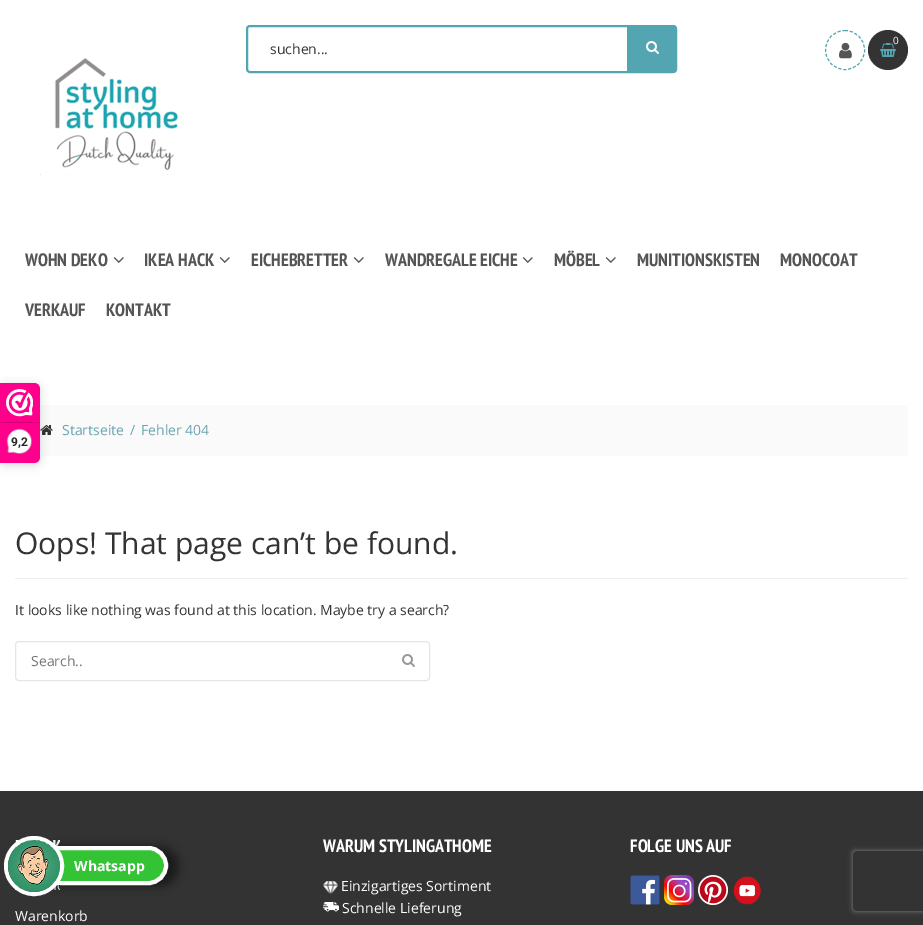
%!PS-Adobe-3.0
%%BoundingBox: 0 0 923 925
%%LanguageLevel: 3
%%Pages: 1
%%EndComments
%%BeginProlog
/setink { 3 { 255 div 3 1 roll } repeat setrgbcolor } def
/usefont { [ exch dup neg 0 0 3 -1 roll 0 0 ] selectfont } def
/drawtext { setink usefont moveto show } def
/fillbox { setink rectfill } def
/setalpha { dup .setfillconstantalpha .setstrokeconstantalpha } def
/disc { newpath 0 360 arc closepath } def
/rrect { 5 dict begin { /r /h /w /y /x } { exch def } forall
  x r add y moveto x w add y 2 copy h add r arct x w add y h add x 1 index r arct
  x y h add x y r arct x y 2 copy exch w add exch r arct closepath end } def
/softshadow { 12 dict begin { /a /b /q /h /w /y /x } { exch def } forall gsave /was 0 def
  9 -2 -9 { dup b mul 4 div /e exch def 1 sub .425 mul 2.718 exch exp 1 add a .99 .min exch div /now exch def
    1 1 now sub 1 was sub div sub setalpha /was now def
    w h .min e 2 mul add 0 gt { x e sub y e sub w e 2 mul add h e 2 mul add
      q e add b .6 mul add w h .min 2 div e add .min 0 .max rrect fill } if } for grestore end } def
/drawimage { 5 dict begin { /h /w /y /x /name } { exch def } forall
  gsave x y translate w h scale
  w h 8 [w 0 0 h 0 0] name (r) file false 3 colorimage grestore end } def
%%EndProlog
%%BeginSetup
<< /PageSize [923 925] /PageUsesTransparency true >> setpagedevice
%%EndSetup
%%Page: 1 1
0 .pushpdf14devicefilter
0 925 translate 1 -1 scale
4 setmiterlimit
0 0 923 925 255 255 255 fillbox
83 166 177 setink
[3 2] 0 setdash
845 30.5 moveto 856 30.5 864.5 39 864.5 50 curveto 864.5 61 856 69.5 845 69.5 curveto 834 69.5 825.5 61 825.5 50 curveto 825.5 39 834 30.5 845 30.5 curveto closepath stroke
(assets/img1.rgb) 839 42 13 17 drawimage
51 51 51 setink
888 50 20 disc fill
(assets/img2.rgb) 880 43 16 14 drawimage
(0) 893 44 /OpenSans-Regular 10 255 255 255 drawtext
83 166 177 setink
2 setlinewidth
[] 0 setdash
247 26 429 46 3 rrect stroke
(suchen...) 270 54 /OpenSans-Regular 14 51 51 51 drawtext
83 166 177 setink
627 25 moveto 673 25 lineto 675 25 677 27 677 29 curveto 677 69 lineto 677 71 675 73 673 73 curveto 627 73 lineto closepath fill
(assets/img3.rgb) 646 41 13 13 drawimage
(assets/img4.rgb) 40 58 139 117 drawimage
(WOHN DEKO) 25 266 /PTSansNarrow-Bold 18 85 85 85 drawtext
(assets/img5.rgb) 113 257 11 6 drawimage
(IKEA HACK) 144 266 /PTSansNarrow-Bold 18 85 85 85 drawtext
(assets/img5.rgb) 219 257 11 6 drawimage
(EICHEBRETTER) 251 266 /PTSansNarrow-Bold 18 85 85 85 drawtext
(assets/img5.rgb) 353 257 11 6 drawimage
(WANDREGALE EICHE) 385 266 /PTSansNarrow-Bold 18 85 85 85 drawtext
(assets/img5.rgb) 522 257 11 6 drawimage
(MÖBEL) 554 266 /PTSansNarrow-Bold 18 85 85 85 drawtext
(assets/img5.rgb) 605 257 11 6 drawimage
(MUNITIONSKISTEN) 637 266 /PTSansNarrow-Bold 18 85 85 85 drawtext
(MONOCOAT) 780 266 /PTSansNarrow-Bold 18 85 85 85 drawtext
(VERKAUF) 25 316 /PTSansNarrow-Bold 18 85 85 85 drawtext
(KONTAKT) 106 316 /PTSansNarrow-Bold 18 85 85 85 drawtext
40 405 868 51 250 250 250 fillbox
(assets/img6.rgb) 40 425 13 10 drawimage
(Startseite) 62 435 /OpenSans-Regular 14 105 164 175 drawtext
(/) 130 435 /OpenSans-Regular 14 105 164 175 drawtext
(Fehler 404) 141 435 /OpenSans-Regular 14 105 164 175 drawtext
15 578 893 1 238 238 238 fillbox
(Oops! That page can’t be found.) 15 554 /OpenSans-Regular 30 51 51 51 drawtext
(It looks like nothing was found at this location. Maybe try a search?) 15 615 /OpenSans-Regular 14 51 51 51 drawtext
229 229 229 setink
1 setlinewidth
15.5 641.5 414 39 3.5 rrect stroke
(Search..) 31 666 /OpenSans-Regular 14 117 117 117 drawtext
(assets/img7.rgb) 402 654 13 13 drawimage
0 791 923 134 51 51 51 fillbox
(WARUM STYLINGATHOME) 323 852 /PTSansNarrow-Bold 18 255 255 255 drawtext
(assets/img8.rgb) 323 881 15 13 drawimage
(Einzigartiges Sortiment) 341 891 /OpenSans-Regular 14 255 255 255 drawtext
(assets/img9.rgb) 323 902 16 10 drawimage
(Schnelle Lieferung) 342 913 /OpenSans-Regular 14 255 255 255 drawtext
(FOLGE UNS AUF) 630 852 /PTSansNarrow-Bold 18 255 255 255 drawtext
(assets/img10.rgb) 630 875 30 30 drawimage
(assets/img11.rgb) 664 875 30 30 drawimage
(assets/img12.rgb) 698 875 30 30 drawimage
(assets/img13.rgb) 733 876 28 29 drawimage
(Warenkorb) 15 921 /OpenSans-Regular 14 255 255 255 drawtext
0 0 0 setink
40 847 138 39 19.5 5 0.5 softshadow
51 195 52 setink
32 848 134 35 17.5 rrect gsave fill grestore
255 255 255 setink
4 setlinewidth
stroke
34 866 28 disc stroke
(assets/img14.rgb) 8 840 52 52 drawimage
(Whatsapp) 74 871 /OpenSans-Bold 14 255 255 255 drawtext
0 0 0 setink
0 385 40 80 6 5 0.15 softshadow
254 0 140 setink
0 383 moveto 34 383 lineto 37.5 383 40 385.5 40 389 curveto 40 457 lineto 40 460.5 37.5 463 34 463 curveto 0 463 lineto closepath fill
(assets/img15.rgb) 6 389 27 28 drawimage
0 422 39 1 216 0 119 fillbox
(assets/img16.rgb) 6 428 26 26 drawimage
(9,2) 11 446 /Roboto-Bold 12 39 38 38 drawtext
gsave
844 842 moveto 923 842 lineto 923 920 lineto 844 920 lineto closepath 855 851 moveto 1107 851 lineto 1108 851 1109 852 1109 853 curveto 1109 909 lineto 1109 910 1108 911 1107 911 curveto 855 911 lineto 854 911 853 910 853 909 curveto 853 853 lineto 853 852 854 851 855 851 curveto closepath eoclip newpath
128 128 128 setink
853 851 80 60 2 2.5 1 softshadow
grestore
.poppdf14devicefilter showpage
%%EOF
